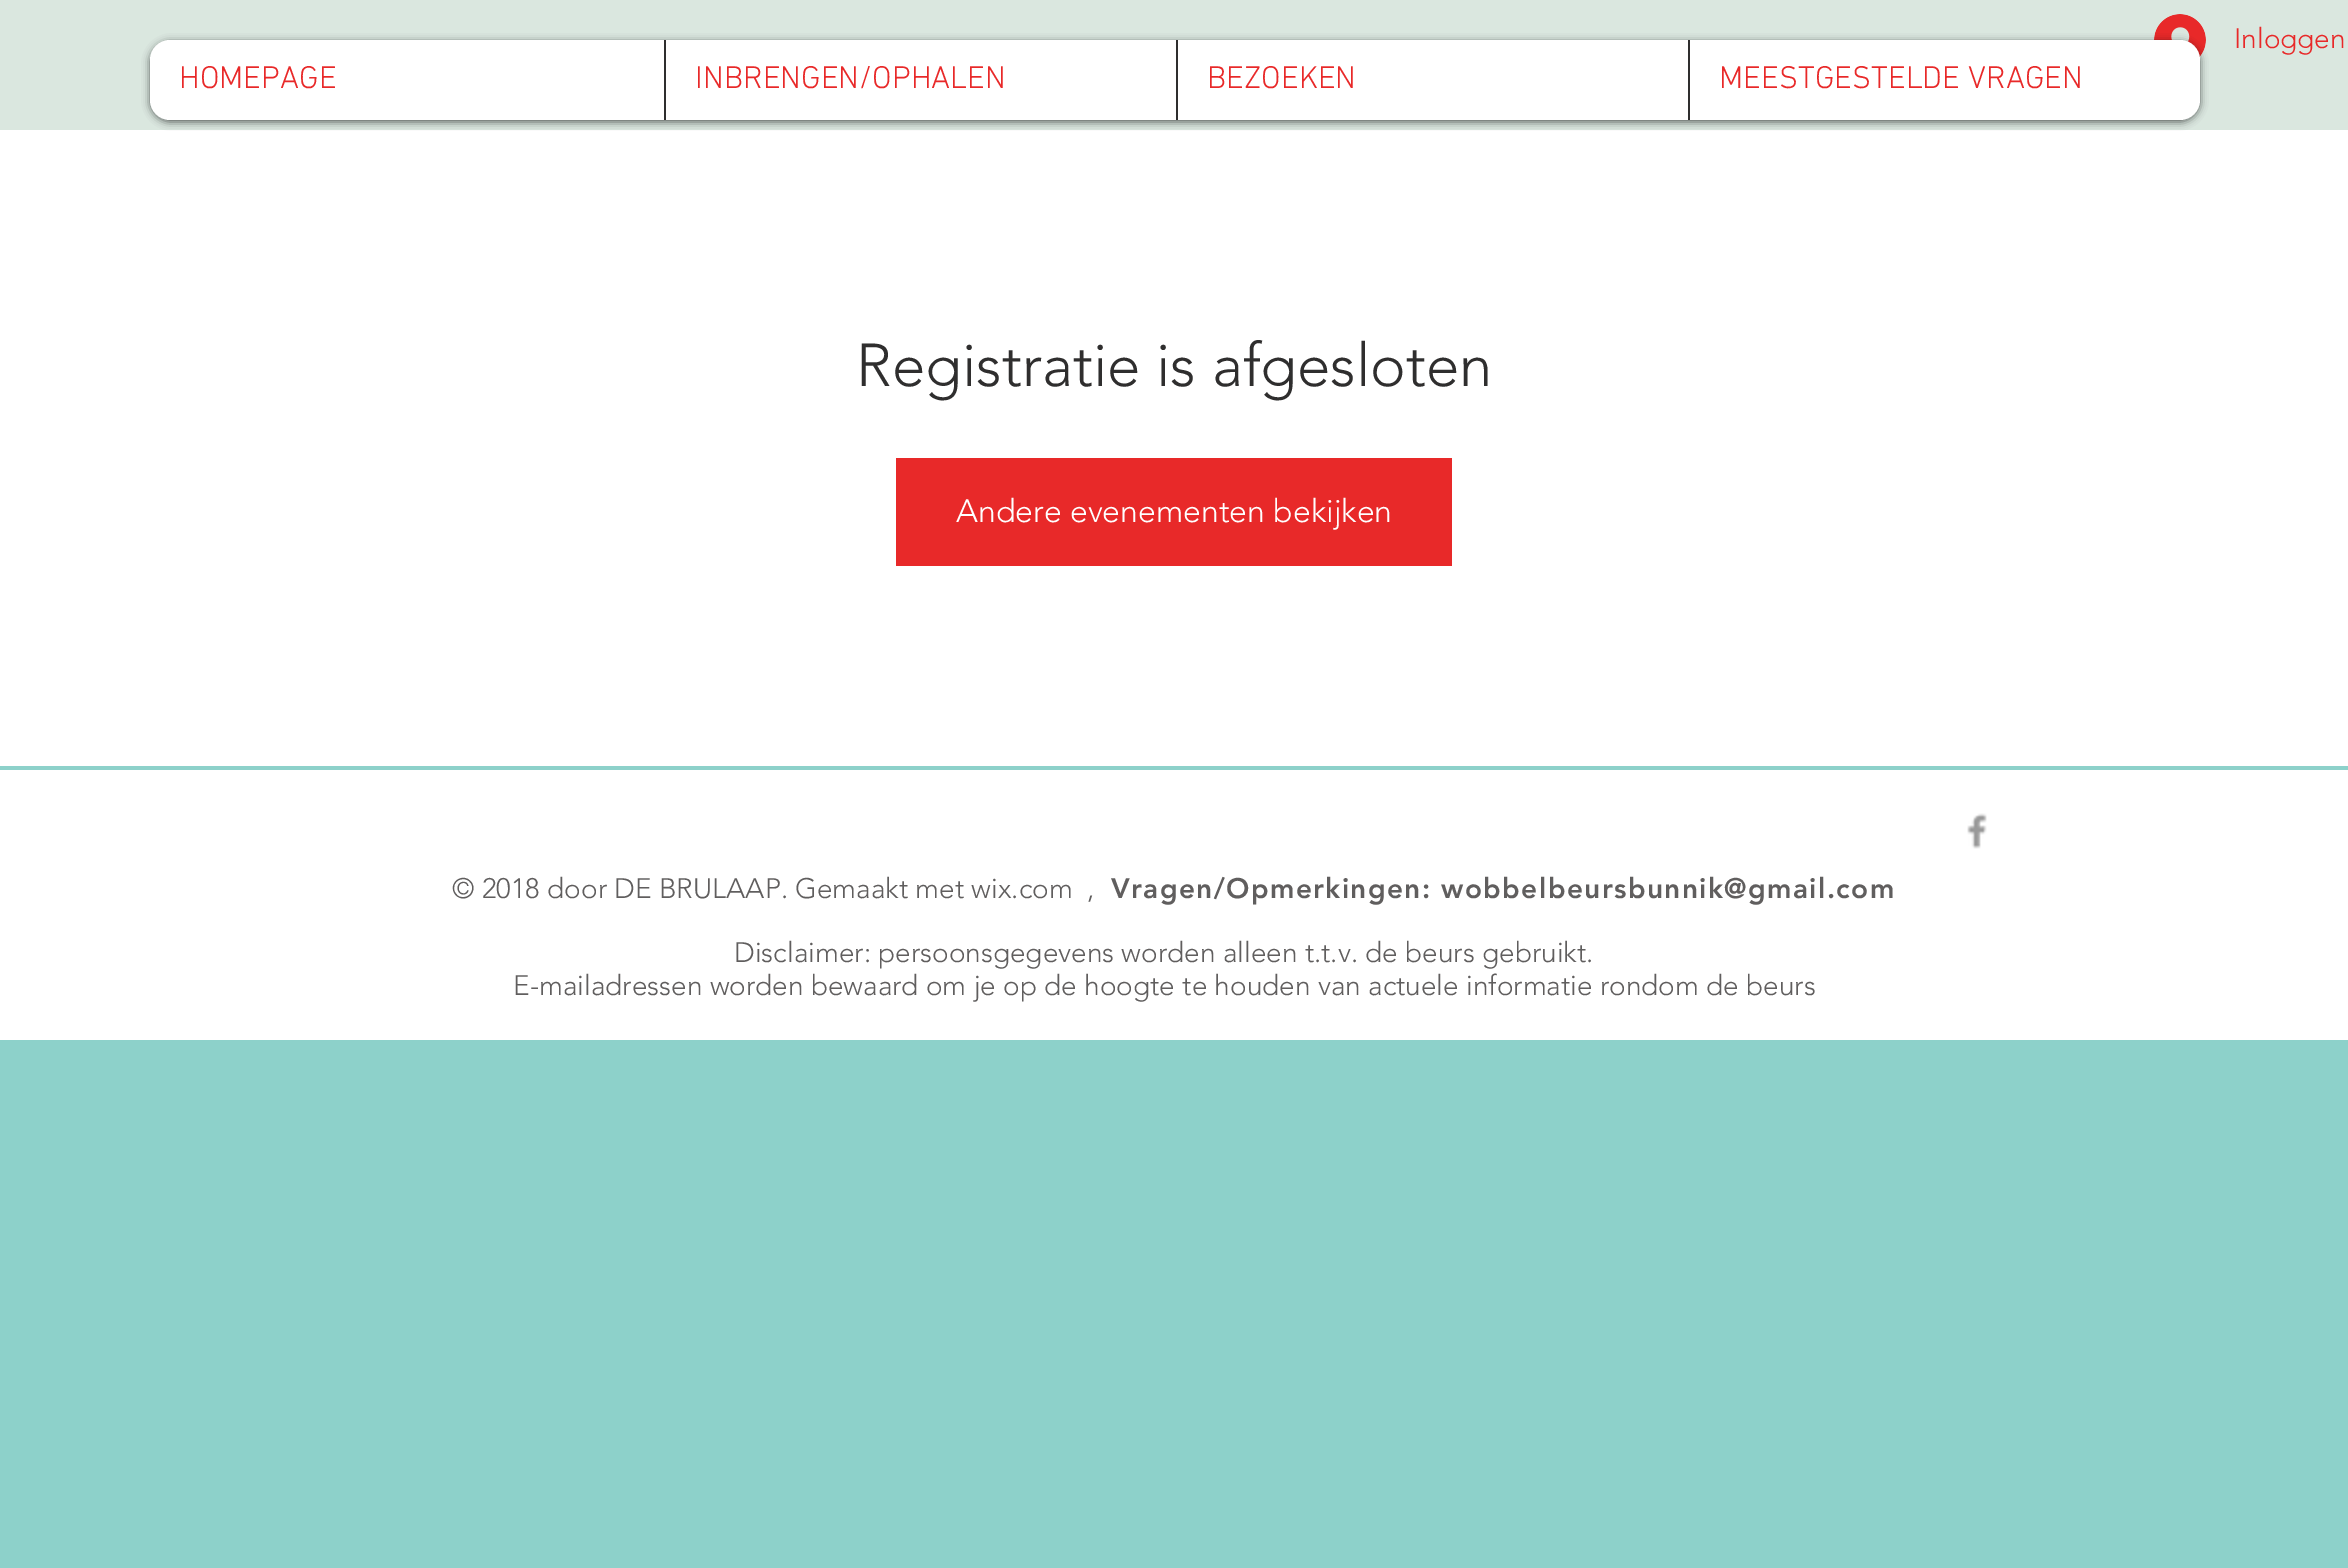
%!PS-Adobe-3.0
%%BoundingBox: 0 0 2348 1568
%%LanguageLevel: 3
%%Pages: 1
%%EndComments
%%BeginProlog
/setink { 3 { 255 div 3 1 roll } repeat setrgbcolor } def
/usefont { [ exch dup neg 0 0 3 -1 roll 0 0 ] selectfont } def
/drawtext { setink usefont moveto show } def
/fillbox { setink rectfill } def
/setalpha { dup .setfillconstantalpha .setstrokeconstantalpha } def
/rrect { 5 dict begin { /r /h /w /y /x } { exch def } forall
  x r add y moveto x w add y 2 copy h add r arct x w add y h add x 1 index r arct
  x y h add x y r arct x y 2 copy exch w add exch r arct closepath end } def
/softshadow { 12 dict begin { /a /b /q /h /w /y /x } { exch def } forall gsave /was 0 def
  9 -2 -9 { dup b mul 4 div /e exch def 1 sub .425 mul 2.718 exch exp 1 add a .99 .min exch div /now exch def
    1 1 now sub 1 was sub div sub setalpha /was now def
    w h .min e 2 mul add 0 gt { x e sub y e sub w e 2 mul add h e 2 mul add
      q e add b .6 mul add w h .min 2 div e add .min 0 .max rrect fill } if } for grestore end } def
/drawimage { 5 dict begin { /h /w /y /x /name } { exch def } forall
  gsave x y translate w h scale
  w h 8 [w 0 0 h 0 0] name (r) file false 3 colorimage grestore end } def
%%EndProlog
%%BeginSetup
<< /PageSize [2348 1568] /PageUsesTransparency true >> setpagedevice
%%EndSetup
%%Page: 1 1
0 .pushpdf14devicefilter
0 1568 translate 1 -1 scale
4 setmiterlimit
0 0 2348 1568 141 209 202 fillbox
0 0 2348 130 218 231 223 fillbox
(assets/img1.rgb) 2154 14 52 44 drawimage
(Inloggen) 2234 48 /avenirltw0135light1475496-Light 28 232 41 41 drawtext
0 130 2348 636 255 255 255 fillbox
0 0 0 setink
150 42 2050 80 20 4 0.6 softshadow
255 255 255 setink
150 40 2050 80 20 rrect fill
(HOMEPAGE) 179 88 /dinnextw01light-Light 32 232 41 41 drawtext
664 40 2 80 47 46 46 fillbox
(INBRENGEN/OPHALEN) 695 88 /dinnextw01light-Light 32 232 41 41 drawtext
1176 40 2 80 47 46 46 fillbox
(BEZOEKEN) 1207 88 /dinnextw01light-Light 32 232 41 41 drawtext
1688 40 2 80 47 46 46 fillbox
(MEESTGESTELDE VRAGEN) 1719 88 /dinnextw01light-Light 32 232 41 41 drawtext
(Registratie is afgesloten) 856 386 /avenirltw0135light1475496-Light 60 47 46 46 drawtext
896 458 556 108 232 41 41 fillbox
(Andere evenementen bekijken) 956 522 /avenirltw0135light1475496-Light 32 255 255 255 drawtext
0 770 2348 270 255 255 255 fillbox
(assets/img2.rgb) 1967 813 20 36 drawimage
(© 2018 door DE BRULAAP. Gemaakt met wix.com) 452 898 /avenirltw0135light1475496-Light 28 96 94 94 drawtext
(,) 1087 898 /avenirltw0135light1475496-Light 28 96 94 94 drawtext
/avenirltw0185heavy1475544-Black 28 usefont
1111 898 moveto 1.4 0 (Vragen/Opmerkingen: wobbelbeursbunnik@gmail.com) ashow
(Disclaimer: persoonsgegevens worden alleen t.t.v. de beurs gebruikt.) 734 962 /avenirltw0135light1475496-Light 28 96 94 94 drawtext
(E-mailadressen worden bewaard om je op de hoogte te houden van actuele informatie rondom de beurs) 513 995 /avenirltw0135light1475496-Light 28 96 94 94 drawtext
.poppdf14devicefilter showpage
%%EOF
